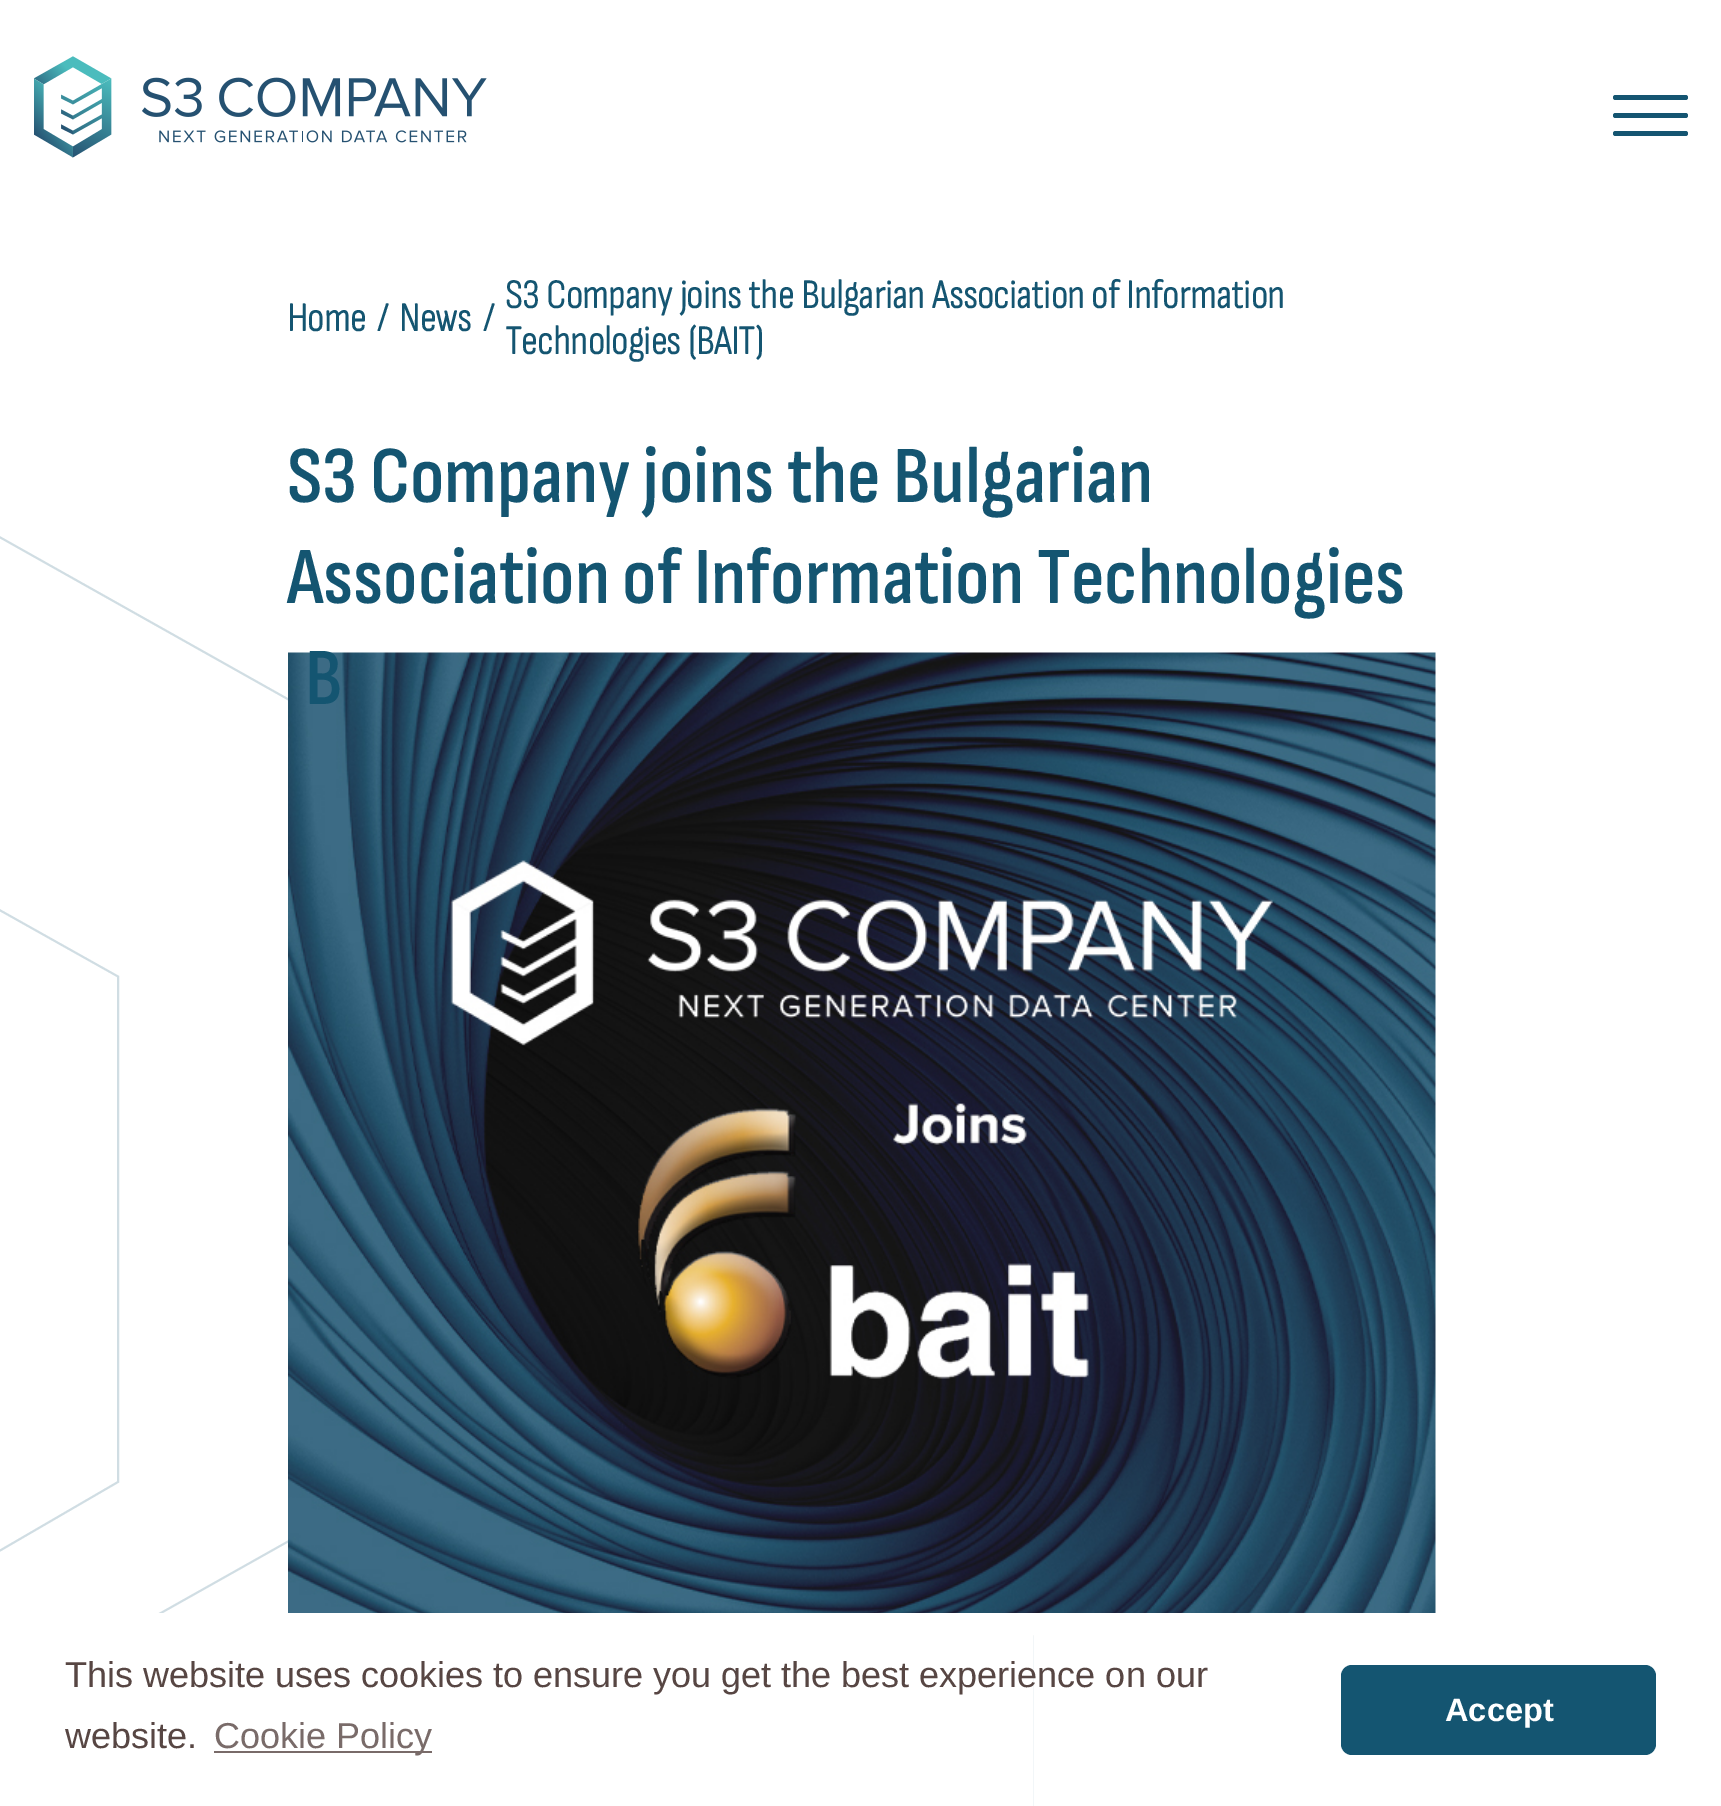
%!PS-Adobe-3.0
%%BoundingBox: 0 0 1721 1806
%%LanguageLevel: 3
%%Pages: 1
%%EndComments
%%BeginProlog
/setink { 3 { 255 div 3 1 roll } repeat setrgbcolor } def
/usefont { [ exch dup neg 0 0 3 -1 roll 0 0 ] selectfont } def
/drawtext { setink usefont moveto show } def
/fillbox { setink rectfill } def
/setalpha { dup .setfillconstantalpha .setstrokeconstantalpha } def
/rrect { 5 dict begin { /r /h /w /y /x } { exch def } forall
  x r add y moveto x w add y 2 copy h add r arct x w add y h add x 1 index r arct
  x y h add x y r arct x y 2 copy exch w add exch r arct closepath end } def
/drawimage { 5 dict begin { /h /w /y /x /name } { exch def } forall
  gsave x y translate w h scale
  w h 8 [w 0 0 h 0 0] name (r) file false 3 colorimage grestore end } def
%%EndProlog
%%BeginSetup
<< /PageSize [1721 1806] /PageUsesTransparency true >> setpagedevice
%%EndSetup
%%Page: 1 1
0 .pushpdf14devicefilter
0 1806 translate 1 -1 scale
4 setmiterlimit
0 0 1721 1806 255 255 255 fillbox
(assets/img1.rgb) 34 56 453 102 drawimage
20 85 113 setink
1613 95 75 5 2.5 rrect fill
1613 113 75 5 2.5 rrect fill
1613 131 75 5 2.5 rrect fill
(Home) 287 331 /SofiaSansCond-Bold 40.5 20 85 113 drawtext
(/) 377 331 /SofiaSansCond-Bold 40.5 20 85 113 drawtext
(News) 399 331 /SofiaSansCond-Bold 40.5 20 85 113 drawtext
(/) 483 331 /SofiaSansCond-Bold 40.5 20 85 113 drawtext
(S3 Company joins the Bulgarian Association of Information) 505 308 /SofiaSansCond-Bold 40.5 20 85 113 drawtext
(Technologies \(BAIT\)) 505 354 /SofiaSansCond-Bold 40.5 20 85 113 drawtext
208 221 227 setink
1.9 setlinewidth
-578.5 976.5 moveto -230.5 781 lineto 118 976.5 lineto 118 1482 lineto -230.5 1684.5 lineto -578.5 1482 lineto closepath stroke
120 1636 moveto 576 1379.5 lineto 1032 1636 lineto 1032 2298.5 lineto 576 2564 lineto 120 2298.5 lineto closepath stroke
0.2 setalpha
20 85 113 setink
-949 970.5 moveto -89.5 487 lineto 770.5 970.5 lineto 770.5 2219 lineto -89.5 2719.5 lineto -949 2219 lineto closepath stroke
1 setalpha
(S3 Company joins the Bulgarian) 287 502 /SofiaSansCond-SemiBold 81 20 85 113 drawtext
(Association of Information Technologies) 287 603 /SofiaSansCond-SemiBold 81 20 85 113 drawtext
(assets/img2.rgb) 288 652 1148 961 drawimage
(B) 305 704 /SofiaSansCond-SemiBold 81 20 85 113 drawtext
119 1613 914 193 255 255 255 fillbox
(This website uses cookies to ensure you get the best experience on our) 65 1687 /LiberationSans-Regular 36 87 70 67 drawtext
(website.) 65 1748 /LiberationSans-Regular 36 87 70 67 drawtext
214 1751 218 2 121 107 105 fillbox
(Cookie Policy) 214 1748 /LiberationSans-Regular 36 121 107 105 drawtext
20 85 113 setink
1341 1665 315 90 11 rrect fill
(Accept) 1445 1721 /LiberationSans-Bold 32.5 255 255 255 drawtext
.poppdf14devicefilter showpage
%%EOF
